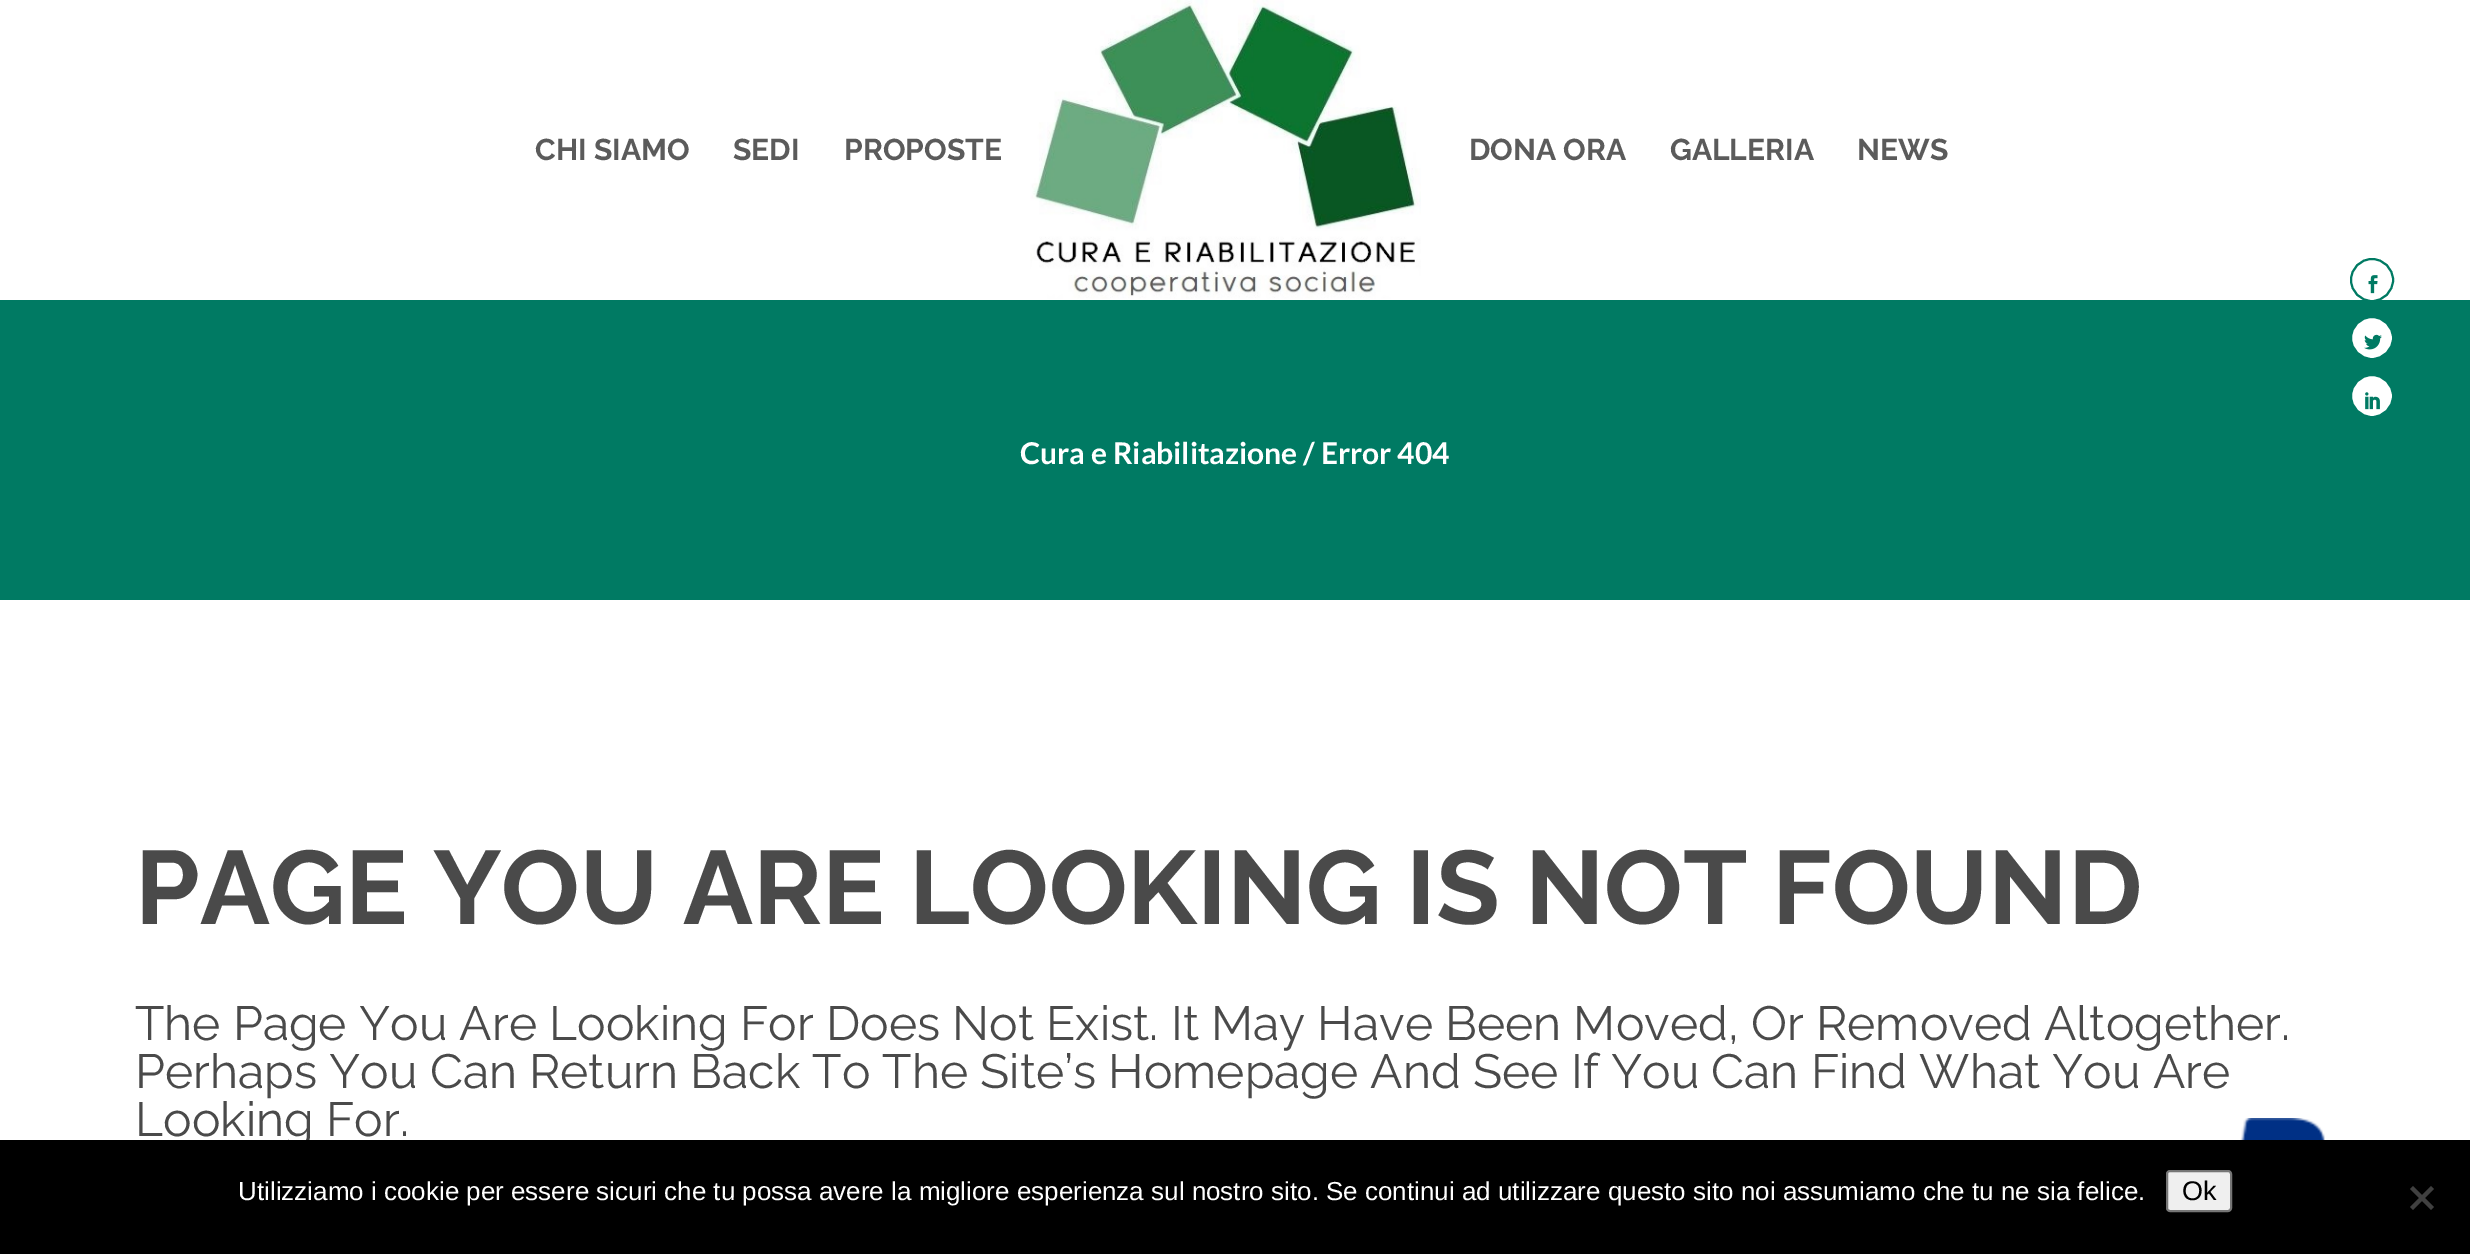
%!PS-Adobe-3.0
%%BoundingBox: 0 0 2470 1254
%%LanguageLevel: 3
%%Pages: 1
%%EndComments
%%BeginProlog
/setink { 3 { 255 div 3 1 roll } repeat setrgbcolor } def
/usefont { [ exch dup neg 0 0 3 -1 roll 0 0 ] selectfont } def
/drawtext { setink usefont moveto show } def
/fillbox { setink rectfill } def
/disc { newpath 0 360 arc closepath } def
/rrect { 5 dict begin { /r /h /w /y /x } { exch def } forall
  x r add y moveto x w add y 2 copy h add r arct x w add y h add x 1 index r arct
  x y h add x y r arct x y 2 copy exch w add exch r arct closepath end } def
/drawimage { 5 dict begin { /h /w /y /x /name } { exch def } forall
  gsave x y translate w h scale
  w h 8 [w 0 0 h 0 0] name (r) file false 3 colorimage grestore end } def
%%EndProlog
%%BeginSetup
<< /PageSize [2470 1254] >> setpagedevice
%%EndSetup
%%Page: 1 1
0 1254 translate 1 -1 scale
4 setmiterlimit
0 0 2470 1254 255 255 255 fillbox
(CHI SIAMO) 535 160 /Raleway-Bold 30 91 91 91 drawtext
(SEDI) 733 160 /Raleway-Bold 30 91 91 91 drawtext
(PROPOSTE) 844 160 /Raleway-Bold 30 91 91 91 drawtext
(assets/img1.rgb) 1030 0 391 299 drawimage
(DONA ORA) 1469 160 /Raleway-Bold 30 91 91 91 drawtext
(GALLERIA) 1670 160 /Raleway-Bold 30 91 91 91 drawtext
(NEWS) 1857 160 /Raleway-Bold 30 91 91 91 drawtext
0 300 2470 300 0 122 99 fillbox
255 255 255 setink
2372 280 21 disc gsave fill grestore
0 122 99 setink
2 setlinewidth
stroke
(assets/img2.rgb) 2368 275 10 19 drawimage
255 255 255 setink
2372 338 21 disc gsave fill grestore
0 122 99 setink
stroke
(assets/img3.rgb) 2364 334 18 16 drawimage
255 255 255 setink
2372 396 21 disc gsave fill grestore
0 122 99 setink
stroke
(assets/img4.rgb) 2365 392 15 18 drawimage
(Cura e Riabilitazione / Error 404) 1020 464 /Lato-Bold 30 255 255 255 drawtext
(PAGE YOU ARE LOOKING IS NOT FOUND) 135 924 /Raleway-Bold 104 74 74 74 drawtext
(The Page You Are Looking For Does Not Exist. It May Have Been Moved, Or Removed Altogether.) 135 1040 /Raleway-Regular 48 74 74 74 drawtext
(Perhaps You Can Return Back To The Site’s Homepage And See If You Can Find What You Are) 135 1088 /Raleway-Regular 48 74 74 74 drawtext
(Looking For.) 135 1136 /Raleway-Regular 48 74 74 74 drawtext
(assets/img5.rgb) 2240 1118 85 22 drawimage
0 1140 2470 114 0 0 0 fillbox
(Utilizziamo i cookie per essere sicuri che tu possa avere la migliore esperienza sul nostro sito. Se continui ad utilizzare questo sito noi assumiamo che tu ne sia felice.) 238 1200 /LiberationSans-Regular 26 255 255 255 drawtext
239 239 239 setink
2167 1171 64 40 3 rrect gsave fill grestore
118 118 118 setink
stroke
(Ok) 2182 1200 /LiberationSans-Regular 27 0 0 0 drawtext
64 64 64 setink
2431 1186 moveto 2434 1189 lineto 2413 1210 lineto 2410 1207 lineto closepath fill
2410 1189 moveto 2413 1186 lineto 2434 1207 lineto 2431 1210 lineto closepath fill
showpage
%%EOF
